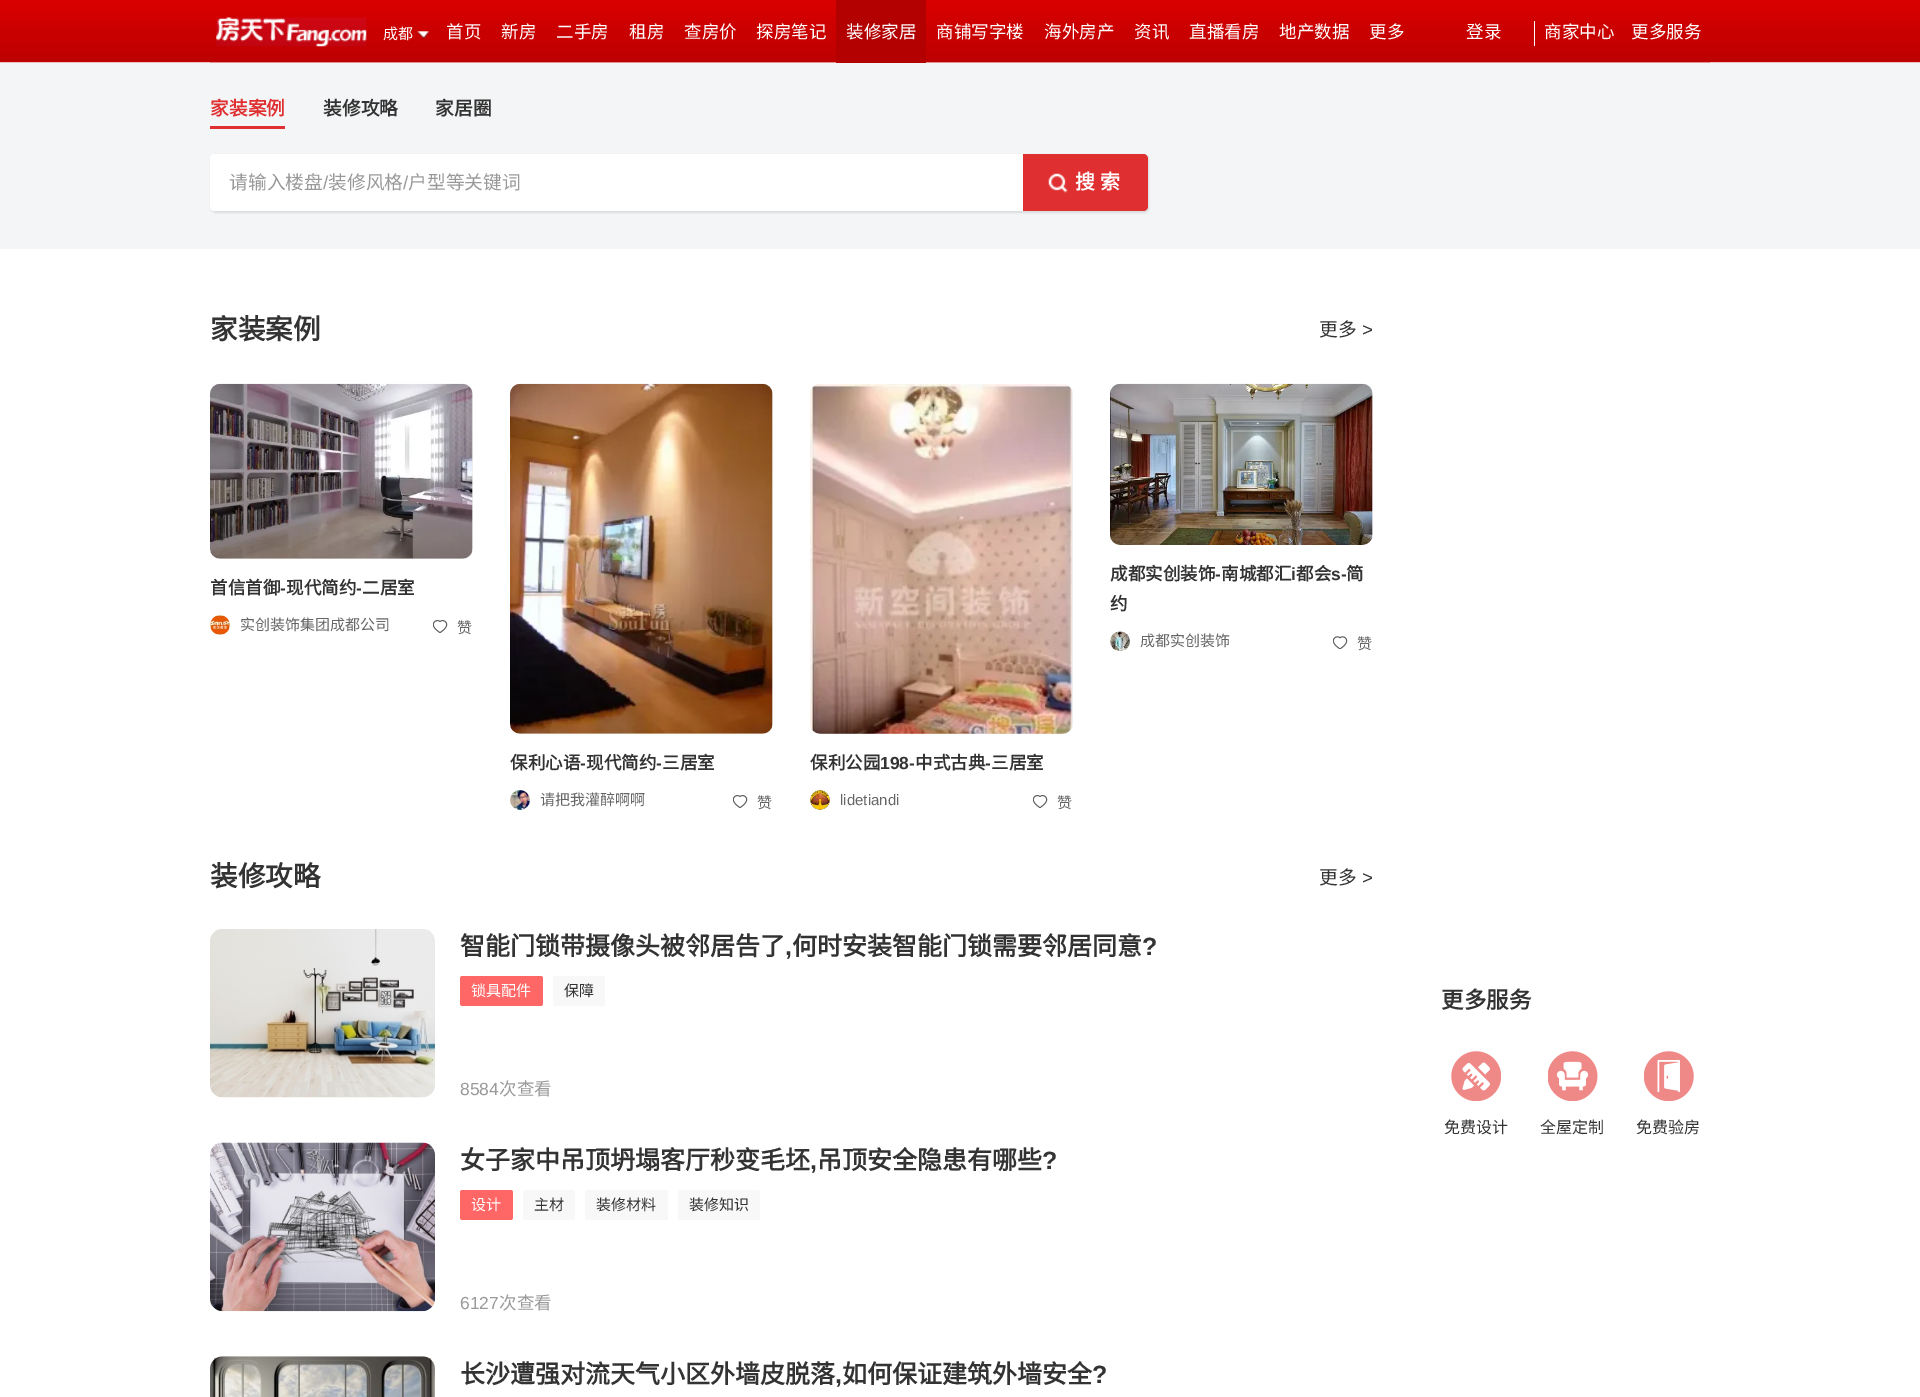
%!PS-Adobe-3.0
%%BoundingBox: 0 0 1920 1397
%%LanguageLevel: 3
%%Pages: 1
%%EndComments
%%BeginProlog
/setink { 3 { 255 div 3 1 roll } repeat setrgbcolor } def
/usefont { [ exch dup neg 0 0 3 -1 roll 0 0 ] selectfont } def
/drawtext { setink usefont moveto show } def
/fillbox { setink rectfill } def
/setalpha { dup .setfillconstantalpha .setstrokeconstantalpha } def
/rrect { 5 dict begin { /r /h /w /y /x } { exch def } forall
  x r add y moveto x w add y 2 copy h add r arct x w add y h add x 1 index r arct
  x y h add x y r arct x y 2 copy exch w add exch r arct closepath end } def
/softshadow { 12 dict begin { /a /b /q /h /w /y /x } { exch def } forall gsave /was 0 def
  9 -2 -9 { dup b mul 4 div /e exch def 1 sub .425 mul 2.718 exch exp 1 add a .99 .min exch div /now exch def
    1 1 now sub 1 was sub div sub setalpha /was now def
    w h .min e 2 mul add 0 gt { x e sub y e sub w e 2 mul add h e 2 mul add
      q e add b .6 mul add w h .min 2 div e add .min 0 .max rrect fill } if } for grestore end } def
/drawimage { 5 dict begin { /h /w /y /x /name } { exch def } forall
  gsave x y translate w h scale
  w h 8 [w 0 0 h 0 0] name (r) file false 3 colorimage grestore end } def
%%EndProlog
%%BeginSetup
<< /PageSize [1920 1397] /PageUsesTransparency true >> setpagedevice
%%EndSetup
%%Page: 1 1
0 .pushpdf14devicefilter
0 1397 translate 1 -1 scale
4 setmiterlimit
0 0 1920 1397 255 255 255 fillbox
(assets/img1.rgb) 0 0 1920 63 drawimage
210 62 1500 1 225 143 143 fillbox
(assets/img2.rgb) 216 17 151 30 drawimage
(成都) 383 39 /NotoSansCJKSC-Regular 15 255 255 255 drawtext
(assets/img3.rgb) 417 31 12 8 drawimage
(首页) 446 38 /NotoSansCJKSC-Regular 17.5 255 255 255 drawtext
(新房) 501 38 /NotoSansCJKSC-Regular 17.5 255 255 255 drawtext
(二手房) 556 38 /NotoSansCJKSC-Regular 17.5 255 255 255 drawtext
(租房) 629 38 /NotoSansCJKSC-Regular 17.5 255 255 255 drawtext
(查房价) 684 38 /NotoSansCJKSC-Regular 17.5 255 255 255 drawtext
(探房笔记) 756 38 /NotoSansCJKSC-Regular 17.5 255 255 255 drawtext
836 0 90 63 179 0 0 fillbox
(装修家居) 846 38 /NotoSansCJKSC-Regular 17.5 255 255 255 drawtext
(商铺写字楼) 936 38 /NotoSansCJKSC-Regular 17.5 255 255 255 drawtext
(海外房产) 1044 38 /NotoSansCJKSC-Regular 17.5 255 255 255 drawtext
(资讯) 1134 38 /NotoSansCJKSC-Regular 17.5 255 255 255 drawtext
(直播看房) 1189 38 /NotoSansCJKSC-Regular 17.5 255 255 255 drawtext
(地产数据) 1279 38 /NotoSansCJKSC-Regular 17.5 255 255 255 drawtext
(更多) 1369 38 /NotoSansCJKSC-Regular 17.5 255 255 255 drawtext
(登录) 1466 38 /NotoSansCJKSC-Regular 17.5 255 255 255 drawtext
1534 21 1 25 255 255 255 fillbox
(商家中心) 1544 38 /NotoSansCJKSC-Regular 17.5 255 255 255 drawtext
(更多服务) 1631 38 /NotoSansCJKSC-Regular 17.5 255 255 255 drawtext
0 63 1920 186 244 245 246 fillbox
210 126 75 3 223 47 48 fillbox
(家装案例) 210 115 /NotoSansCJKSC-Bold 18.75 223 47 48 drawtext
(装修攻略) 323 115 /NotoSansCJKSC-Bold 18.75 51 51 51 drawtext
(家居圈) 435 115 /NotoSansCJKSC-Bold 18.75 51 51 51 drawtext
0 0 0 setink
211 155 938 58 5 1 0.1 softshadow
255 255 255 setink
215 154 moveto 1023 154 lineto 1023 211 lineto 215 211 lineto 212 211 210 209 210 206 curveto 210 159 lineto 210 156 212 154 215 154 curveto closepath fill
(请输入楼盘) 229 189 /NotoSansCJKSC-Regular 18.75 153 153 153 drawtext
(/) 323 189 /LiberationSans-Regular 18.75 153 153 153 drawtext
(装修风格) 328 189 /NotoSansCJKSC-Regular 18.75 153 153 153 drawtext
(/) 403 189 /LiberationSans-Regular 18.75 153 153 153 drawtext
(户型等关键词) 408 189 /NotoSansCJKSC-Regular 18.75 153 153 153 drawtext
223 47 48 setink
1023 154 moveto 1143 154 lineto 1146 154 1148 156 1148 159 curveto 1148 206 lineto 1148 209 1146 211 1143 211 curveto 1023 211 lineto closepath fill
(assets/img4.rgb) 1048 173 20 20 drawimage
/NotoSansCJKSC-Bold 20 usefont
255 255 255 setink
1075 189 moveto 1 0 32 (搜 索) widthshow
(家装案例) 210 339 /NotoSansCJKSC-Bold 27.5 51 51 51 drawtext
(更多) 1319 336 /NotoSansCJKSC-Regular 18.75 51 51 51 drawtext
(>) 1362 336 /LiberationSans-Regular 18.75 51 51 51 drawtext
238 238 238 setink
210 384 263 175 10 rrect fill
(assets/img5.rgb) 210 383 263 176 drawimage
(首信首御) 210 594 /NotoSansCJKSC-Bold 17.5 51 51 51 drawtext
(-) 280 594 /LiberationSans-Bold 17.5 51 51 51 drawtext
(现代简约) 286 594 /NotoSansCJKSC-Bold 17.5 51 51 51 drawtext
(-) 356 594 /LiberationSans-Bold 17.5 51 51 51 drawtext
(二居室) 362 594 /NotoSansCJKSC-Bold 17.5 51 51 51 drawtext
(assets/img6.rgb) 210 615 20 20 drawimage
(实创装饰集团成都公司) 240 630 /NotoSansCJKSC-Regular 15 102 102 102 drawtext
(assets/img7.rgb) 433 620 15 13 drawimage
(赞) 457 633 /NotoSansCJKSC-Regular 15 102 102 102 drawtext
238 238 238 setink
1110 384 263 161 10 rrect fill
(assets/img8.rgb) 1110 383 263 162 drawimage
(成都实创装饰) 1110 580 /NotoSansCJKSC-Bold 17.5 51 51 51 drawtext
(-) 1215 580 /LiberationSans-Bold 17.5 51 51 51 drawtext
(南城都汇) 1221 580 /NotoSansCJKSC-Bold 17.5 51 51 51 drawtext
(i) 1291 580 /LiberationSans-Bold 17.5 51 51 51 drawtext
(都会) 1296 580 /NotoSansCJKSC-Bold 17.5 51 51 51 drawtext
(s-) 1331 580 /LiberationSans-Bold 17.5 51 51 51 drawtext
(简) 1346 580 /NotoSansCJKSC-Bold 17.5 51 51 51 drawtext
(约) 1110 610 /NotoSansCJKSC-Bold 17.5 51 51 51 drawtext
(assets/img9.rgb) 1110 631 20 20 drawimage
(成都实创装饰) 1140 646 /NotoSansCJKSC-Regular 15 102 102 102 drawtext
(assets/img10.rgb) 1333 636 15 13 drawimage
(赞) 1357 649 /NotoSansCJKSC-Regular 15 102 102 102 drawtext
238 238 238 setink
510 384 263 350 10 rrect fill
(assets/img11.rgb) 510 383 263 351 drawimage
(保利心语) 510 769 /NotoSansCJKSC-Bold 17.5 51 51 51 drawtext
(-) 580 769 /LiberationSans-Bold 17.5 51 51 51 drawtext
(现代简约) 586 769 /NotoSansCJKSC-Bold 17.5 51 51 51 drawtext
(-) 656 769 /LiberationSans-Bold 17.5 51 51 51 drawtext
(三居室) 662 769 /NotoSansCJKSC-Bold 17.5 51 51 51 drawtext
(assets/img12.rgb) 510 790 20 20 drawimage
(请把我灌醉啊啊) 540 805 /NotoSansCJKSC-Regular 15 102 102 102 drawtext
(assets/img7.rgb) 733 795 15 13 drawimage
(赞) 757 808 /NotoSansCJKSC-Regular 15 102 102 102 drawtext
238 238 238 setink
810 384 263 350 10 rrect fill
(assets/img13.rgb) 810 384 263 350 drawimage
(保利公园) 810 769 /NotoSansCJKSC-Bold 17.5 51 51 51 drawtext
(198-) 880 769 /LiberationSans-Bold 17.5 51 51 51 drawtext
(中式古典) 915 769 /NotoSansCJKSC-Bold 17.5 51 51 51 drawtext
(-) 985 769 /LiberationSans-Bold 17.5 51 51 51 drawtext
(三居室) 991 769 /NotoSansCJKSC-Bold 17.5 51 51 51 drawtext
(assets/img14.rgb) 810 790 20 20 drawimage
(lidetiandi) 840 805 /LiberationSans-Regular 15 102 102 102 drawtext
(assets/img7.rgb) 1033 795 15 13 drawimage
(赞) 1057 808 /NotoSansCJKSC-Regular 15 102 102 102 drawtext
(装修攻略) 210 886 /NotoSansCJKSC-Bold 27.5 51 51 51 drawtext
(更多) 1319 884 /NotoSansCJKSC-Regular 18.75 51 51 51 drawtext
(>) 1362 884 /LiberationSans-Regular 18.75 51 51 51 drawtext
(assets/img15.rgb) 210 929 225 169 drawimage
(智能门锁带摄像头被邻居告了) 460 955 /NotoSansCJKSC-Bold 25 51 51 51 drawtext
(,) 785 955 /LiberationSans-Bold 25 51 51 51 drawtext
(何时安装智能门锁需要邻居同意) 792 955 /NotoSansCJKSC-Bold 25 51 51 51 drawtext
(?) 1142 955 /LiberationSans-Bold 25 51 51 51 drawtext
255 102 102 setink
460 976 83 30 2.5 rrect fill
(锁具配件) 471 996 /NotoSansCJKSC-Regular 15 255 255 255 drawtext
248 248 248 setink
553 976 52 30 2.5 rrect fill
(保障) 564 996 /NotoSansCJKSC-Regular 15 51 51 51 drawtext
(8584) 460 1095 /LiberationSans-Regular 17.5 153 153 153 drawtext
(次查看) 499 1095 /NotoSansCJKSC-Regular 17.5 153 153 153 drawtext
(assets/img16.rgb) 210 1142 225 170 drawimage
(女子家中吊顶坍塌客厅秒变毛坯) 460 1169 /NotoSansCJKSC-Bold 25 51 51 51 drawtext
(,) 810 1169 /LiberationSans-Bold 25 51 51 51 drawtext
(吊顶安全隐患有哪些) 817 1169 /NotoSansCJKSC-Bold 25 51 51 51 drawtext
(?) 1042 1169 /LiberationSans-Bold 25 51 51 51 drawtext
255 102 102 setink
460 1190 53 30 2.5 rrect fill
(设计) 471 1210 /NotoSansCJKSC-Regular 15 255 255 255 drawtext
248 248 248 setink
523 1190 52 30 2.5 rrect fill
(主材) 534 1210 /NotoSansCJKSC-Regular 15 51 51 51 drawtext
248 248 248 setink
585 1190 83 30 2.5 rrect fill
(装修材料) 596 1210 /NotoSansCJKSC-Regular 15 51 51 51 drawtext
248 248 248 setink
678 1190 82 30 2.5 rrect fill
(装修知识) 689 1210 /NotoSansCJKSC-Regular 15 51 51 51 drawtext
(6127) 460 1309 /LiberationSans-Regular 17.5 153 153 153 drawtext
(次查看) 499 1309 /NotoSansCJKSC-Regular 17.5 153 153 153 drawtext
(assets/img17.rgb) 210 1356 225 41 drawimage
(长沙遭强对流天气小区外墙皮脱落) 460 1383 /NotoSansCJKSC-Bold 25 51 51 51 drawtext
(,) 835 1383 /LiberationSans-Bold 25 51 51 51 drawtext
(如何保证建筑外墙安全) 842 1383 /NotoSansCJKSC-Bold 25 51 51 51 drawtext
(?) 1092 1383 /LiberationSans-Bold 25 51 51 51 drawtext
(更多服务) 1441 1008 /NotoSansCJKSC-Bold 22.5 51 51 51 drawtext
(assets/img18.rgb) 1451 1051 50 50 drawimage
(免费设计) 1444 1133 /NotoSansCJKSC-Regular 16 51 51 51 drawtext
(assets/img19.rgb) 1548 1051 50 50 drawimage
(全屋定制) 1540 1133 /NotoSansCJKSC-Regular 16 51 51 51 drawtext
(assets/img20.rgb) 1644 1051 50 50 drawimage
(免费验房) 1636 1133 /NotoSansCJKSC-Regular 16 51 51 51 drawtext
.poppdf14devicefilter showpage
%%EOF
